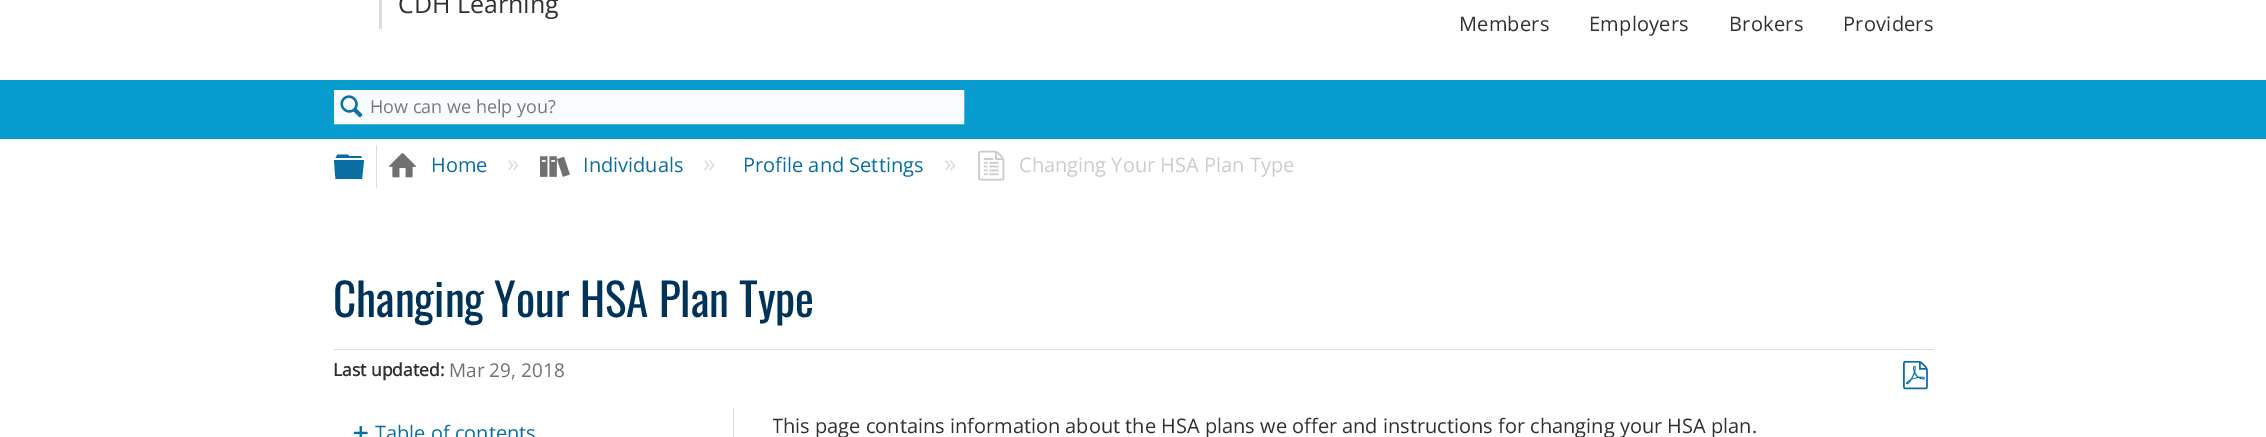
%!PS-Adobe-3.0
%%BoundingBox: 0 0 2266 437
%%LanguageLevel: 3
%%Pages: 1
%%EndComments
%%BeginProlog
/setink { 3 { 255 div 3 1 roll } repeat setrgbcolor } def
/usefont { [ exch dup neg 0 0 3 -1 roll 0 0 ] selectfont } def
/drawtext { setink usefont moveto show } def
/fillbox { setink rectfill } def
/drawimage { 5 dict begin { /h /w /y /x /name } { exch def } forall
  gsave x y translate w h scale
  w h 8 [w 0 0 h 0 0] name (r) file false 3 colorimage grestore end } def
%%EndProlog
%%BeginSetup
<< /PageSize [2266 437] >> setpagedevice
%%EndSetup
%%Page: 1 1
0 437 translate 1 -1 scale
4 setmiterlimit
0 0 2266 437 255 255 255 fillbox
0 80 2266 59 8 156 206 fillbox
379 0 3 29 221 221 221 fillbox
(CDH Learning) 398 13 /OpenSans-Regular 25 48 48 48 drawtext
/OpenSans-Regular 20 usefont
1459 31 moveto 0.25 0 (Members) ashow
1589 31 moveto 0.25 0 (Employers) ashow
1729 31 moveto 0.25 0 (Brokers) ashow
1843 31 moveto 0.25 0 (Providers) ashow
248 252 254 setink
334.5 90.5 moveto 963.5 90.5 lineto 963.5 123.5 lineto 334.5 123.5 lineto closepath gsave fill grestore
255 255 255 setink
stroke
(assets/img1.rgb) 340 95 23 23 drawimage
(How can we help you?) 370 113 /OpenSans-Regular 18 121 121 121 drawtext
8 110 161 setink
334 160 moveto 364 160 lineto 362 179 lineto 335.5 179 lineto closepath 361 156 moveto 362 158 lineto 335.5 158 lineto 337.5 154.5 lineto 348 154.5 lineto 349 156 lineto closepath fill
376 145 1 43 221 221 221 fillbox
(assets/img2.rgb) 389 153 27 25 drawimage
(Home) 431 172 /OpenSans-Regular 20 8 110 161 drawtext
(») 507 172 /OpenSans-Regular 25 221 221 221 drawtext
(assets/img3.rgb) 540 156 30 21 drawimage
(Individuals) 583 172 /OpenSans-Regular 20 8 110 161 drawtext
(») 703 172 /OpenSans-Regular 25 221 221 221 drawtext
(Profile and Settings) 743 172 /OpenSans-Regular 20 8 110 161 drawtext
(») 944 172 /OpenSans-Regular 25 221 221 221 drawtext
(assets/img4.rgb) 978 150 27 31 drawimage
(Changing Your HSA Plan Type) 1019 172 /OpenSans-Regular 20 204 204 204 drawtext
334 349 1600 1 221 221 221 fillbox
(Changing Your HSA Plan Type) 333 317 /Oswald-Regular 45 0 51 89 drawtext
(Last updated:) 333 376 /OpenSans-Bold 17.5 48 48 48 drawtext
(Mar 29, 2018) 449 377 /OpenSans-Regular 19 112 112 112 drawtext
(assets/img5.rgb) 1903 361 25 29 drawimage
733 408 1 29 221 221 221 fillbox
(assets/img6.rgb) 353 426 15 11 drawimage
(Table of contents) 375 440 /OpenSans-Regular 20 8 110 161 drawtext
gsave
773 413 1161 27 rectclip
(This page contains information about the HSA plans we offer and instructions for changing your HSA plan.) 772 433 /OpenSans-Regular 20 48 48 48 drawtext
grestore
showpage
%%EOF
